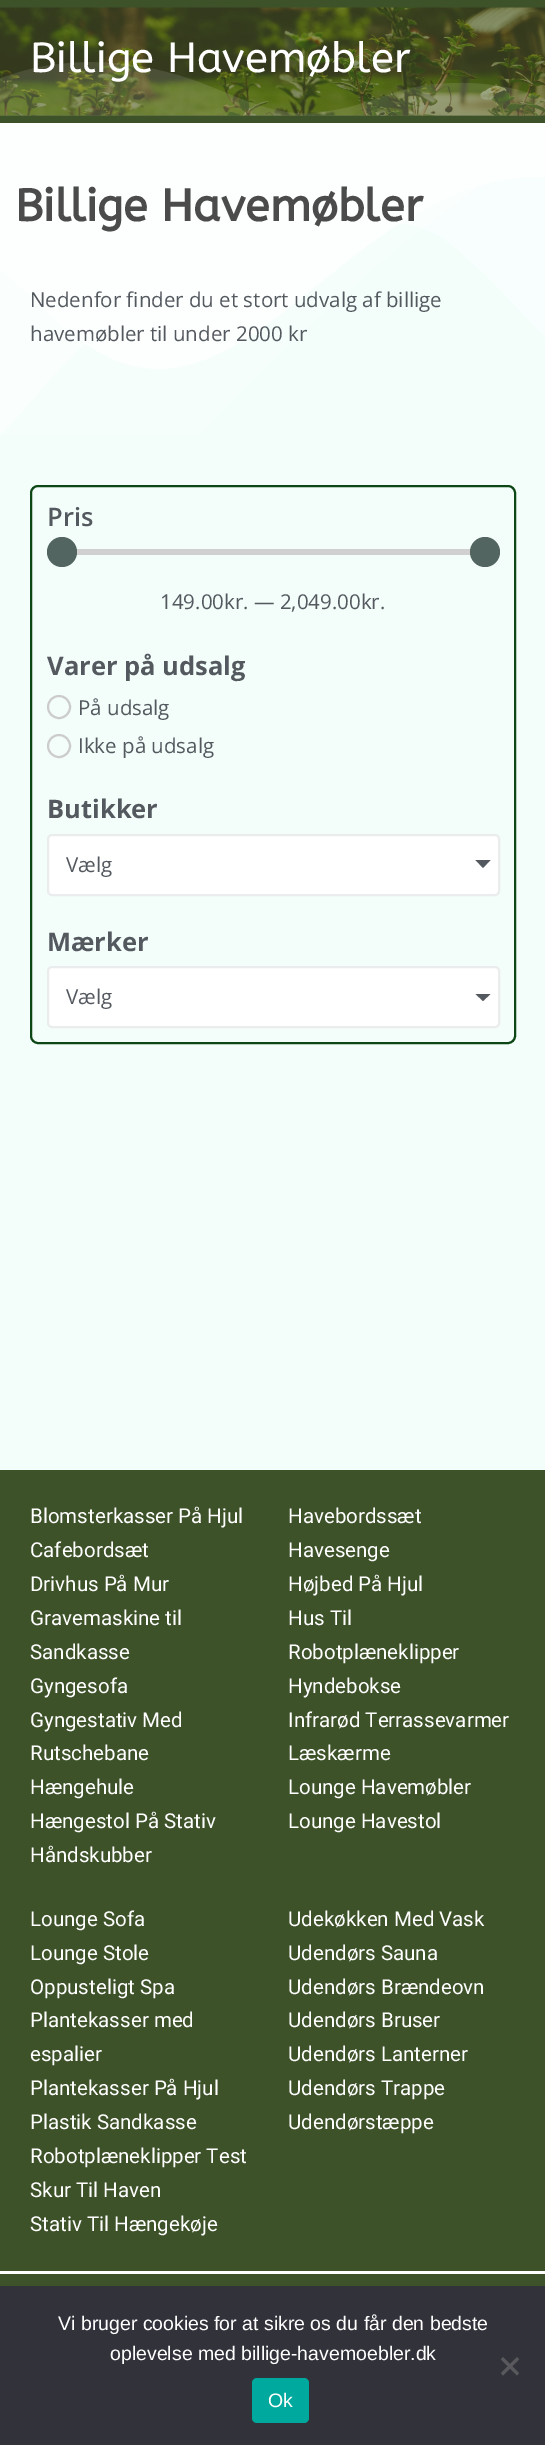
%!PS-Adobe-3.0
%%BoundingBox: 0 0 545 2445
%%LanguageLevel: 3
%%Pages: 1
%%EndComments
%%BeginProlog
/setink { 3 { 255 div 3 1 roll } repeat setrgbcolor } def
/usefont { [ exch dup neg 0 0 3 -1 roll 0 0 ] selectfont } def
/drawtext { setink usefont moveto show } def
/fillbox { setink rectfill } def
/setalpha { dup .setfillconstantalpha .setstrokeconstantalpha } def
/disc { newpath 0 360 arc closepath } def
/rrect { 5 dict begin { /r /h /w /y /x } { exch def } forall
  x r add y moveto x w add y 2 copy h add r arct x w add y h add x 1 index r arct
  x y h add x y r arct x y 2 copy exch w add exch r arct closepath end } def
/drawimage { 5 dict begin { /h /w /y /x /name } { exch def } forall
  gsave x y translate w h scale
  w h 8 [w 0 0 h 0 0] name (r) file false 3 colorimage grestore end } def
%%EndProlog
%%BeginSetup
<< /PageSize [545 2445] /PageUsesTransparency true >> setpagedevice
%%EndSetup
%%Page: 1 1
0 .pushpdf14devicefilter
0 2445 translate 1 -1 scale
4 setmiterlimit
0 0 545 2445 243 254 251 fillbox
0 0 545 123 61 82 41 fillbox
(assets/img1.rgb) 0 7 545 109 drawimage
0.11 setalpha
255 255 255 setink
316 113 moveto 276 117 240 98 204 84 curveto 139 59 65 53 -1 79 curveto -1 116 lineto 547 116 lineto 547 100 lineto 503 80 442 78 396 92 curveto 366 102 lineto 350 108 333 111 316 113 curveto closepath fill
1 setalpha
(Billige Havemøbler) 30 72 /ABeeZee-Regular 42 255 255 255 drawtext
(assets/img2.rgb) 0 123 545 312 drawimage
(Billige Havemøbler) 15 221 /ABeeZee-Bold 45 75 75 75 drawtext
(Nedenfor finder du et stort udvalg af billige) 30 307 /OpenSans-Regular 20.5 84 89 95 drawtext
(havemøbler til under 2000 kr) 30 341 /OpenSans-Regular 20.5 84 89 95 drawtext
13 71 21 setink
2 setlinewidth
31 486 484 557 7 rrect stroke
(Pris) 47 526 /OpenSans-SemiBold 25.5 84 89 95 drawtext
47 549 453 6 208 208 208 fillbox
83 101 96 setink
62 552 15 disc fill
485 552 15 disc fill
(149.00kr. — 2,049.00kr.) 160 609 /OpenSans-Regular 20.5 84 89 95 drawtext
(Varer på udsalg) 47 675 /OpenSans-Bold 25.5 84 89 95 drawtext
204 204 204 setink
59 707 11 disc stroke
(På udsalg) 78 715 /OpenSans-Regular 20.5 84 89 95 drawtext
204 204 204 setink
59 746 11 disc stroke
(Ikke på udsalg) 78 753 /OpenSans-Regular 20.5 84 89 95 drawtext
(Butikker) 47 818 /OpenSans-Bold 25.5 84 89 95 drawtext
255 255 255 setink
48 835 451 60 4 rrect gsave fill grestore
235 236 237 setink
stroke
(Vælg) 66 872 /OpenSans-Regular 20.5 84 89 95 drawtext
475.5 860 moveto 490.5 860 lineto 483 868 lineto closepath fill
(Mærker) 47 951 /OpenSans-Bold 25.5 84 89 95 drawtext
255 255 255 setink
48 967 451 60 4 rrect gsave fill grestore
235 236 237 setink
stroke
(Vælg) 66 1004 /OpenSans-Regular 20.5 84 89 95 drawtext
475.5 994 moveto 490.5 994 lineto 483 1001 lineto closepath fill
0 1470 545 801 61 82 41 fillbox
(Blomsterkasser På Hjul) 30 1523 /Roboto-Regular 20.5 255 255 255 drawtext
(Cafebordsæt) 30 1557 /Roboto-Regular 20.5 255 255 255 drawtext
(Drivhus På Mur) 30 1591 /Roboto-Regular 20.5 255 255 255 drawtext
(Gravemaskine til) 30 1625 /Roboto-Regular 20.5 255 255 255 drawtext
(Sandkasse) 30 1659 /Roboto-Regular 20.5 255 255 255 drawtext
(Gyngesofa) 30 1693 /Roboto-Regular 20.5 255 255 255 drawtext
(Gyngestativ Med) 30 1727 /Roboto-Regular 20.5 255 255 255 drawtext
(Rutschebane) 30 1760 /Roboto-Regular 20.5 255 255 255 drawtext
(Hængehule) 30 1794 /Roboto-Regular 20.5 255 255 255 drawtext
(Hængestol På Stativ) 30 1828 /Roboto-Regular 20.5 255 255 255 drawtext
(Håndskubber) 30 1862 /Roboto-Regular 20.5 255 255 255 drawtext
(Havebordssæt) 288 1523 /Roboto-Regular 20.5 255 255 255 drawtext
(Havesenge) 288 1557 /Roboto-Regular 20.5 255 255 255 drawtext
(Højbed På Hjul) 288 1591 /Roboto-Regular 20.5 255 255 255 drawtext
(Hus Til) 288 1625 /Roboto-Regular 20.5 255 255 255 drawtext
(Robotplæneklipper) 288 1659 /Roboto-Regular 20.5 255 255 255 drawtext
(Hyndebokse) 288 1693 /Roboto-Regular 20.5 255 255 255 drawtext
(Infrarød Terrassevarmer) 288 1727 /Roboto-Regular 20.5 255 255 255 drawtext
(Læskærme) 288 1760 /Roboto-Regular 20.5 255 255 255 drawtext
(Lounge Havemøbler) 288 1794 /Roboto-Regular 20.5 255 255 255 drawtext
(Lounge Havestol) 288 1828 /Roboto-Regular 20.5 255 255 255 drawtext
(Lounge Sofa) 30 1926 /Roboto-Regular 20.5 255 255 255 drawtext
(Lounge Stole) 30 1960 /Roboto-Regular 20.5 255 255 255 drawtext
(Oppusteligt Spa) 30 1994 /Roboto-Regular 20.5 255 255 255 drawtext
(Plantekasser med) 30 2027 /Roboto-Regular 20.5 255 255 255 drawtext
(espalier) 30 2061 /Roboto-Regular 20.5 255 255 255 drawtext
(Plantekasser På Hjul) 30 2095 /Roboto-Regular 20.5 255 255 255 drawtext
(Plastik Sandkasse) 30 2129 /Roboto-Regular 20.5 255 255 255 drawtext
(Robotplæneklipper Test) 30 2163 /Roboto-Regular 20.5 255 255 255 drawtext
(Skur Til Haven) 30 2197 /Roboto-Regular 20.5 255 255 255 drawtext
(Stativ Til Hængekøje) 30 2231 /Roboto-Regular 20.5 255 255 255 drawtext
(Udekøkken Med Vask) 288 1926 /Roboto-Regular 20.5 255 255 255 drawtext
(Udendørs Sauna) 288 1960 /Roboto-Regular 20.5 255 255 255 drawtext
(Udendørs Brændeovn) 288 1994 /Roboto-Regular 20.5 255 255 255 drawtext
(Udendørs Bruser) 288 2027 /Roboto-Regular 20.5 255 255 255 drawtext
(Udendørs Lanterner) 288 2061 /Roboto-Regular 20.5 255 255 255 drawtext
(Udendørs Trappe) 288 2095 /Roboto-Regular 20.5 255 255 255 drawtext
(Udendørstæppe) 288 2129 /Roboto-Regular 20.5 255 255 255 drawtext
0 2274 545 12 61 82 41 fillbox
0 2271 545 3 255 255 255 fillbox
0 2286 545 159 50 50 58 fillbox
(Vi bruger cookies for at sikre os du får den bedste) 58 2330 /LiberationSans-Regular 19.5 255 255 255 drawtext
(oplevelse med billige-havemoebler.dk) 110 2360 /LiberationSans-Regular 19.5 255 255 255 drawtext
89 89 93 setink
517 2357 moveto 519 2359.5 lineto 503 2375.5 lineto 501 2373 lineto closepath fill
501 2359.5 moveto 503 2357 lineto 519 2373 lineto 517 2375.5 lineto closepath fill
0 169 157 setink
252 2378 57 45 5 rrect fill
(Ok) 268 2407 /LiberationSans-Regular 19.5 255 255 255 drawtext
.poppdf14devicefilter showpage
%%EOF
